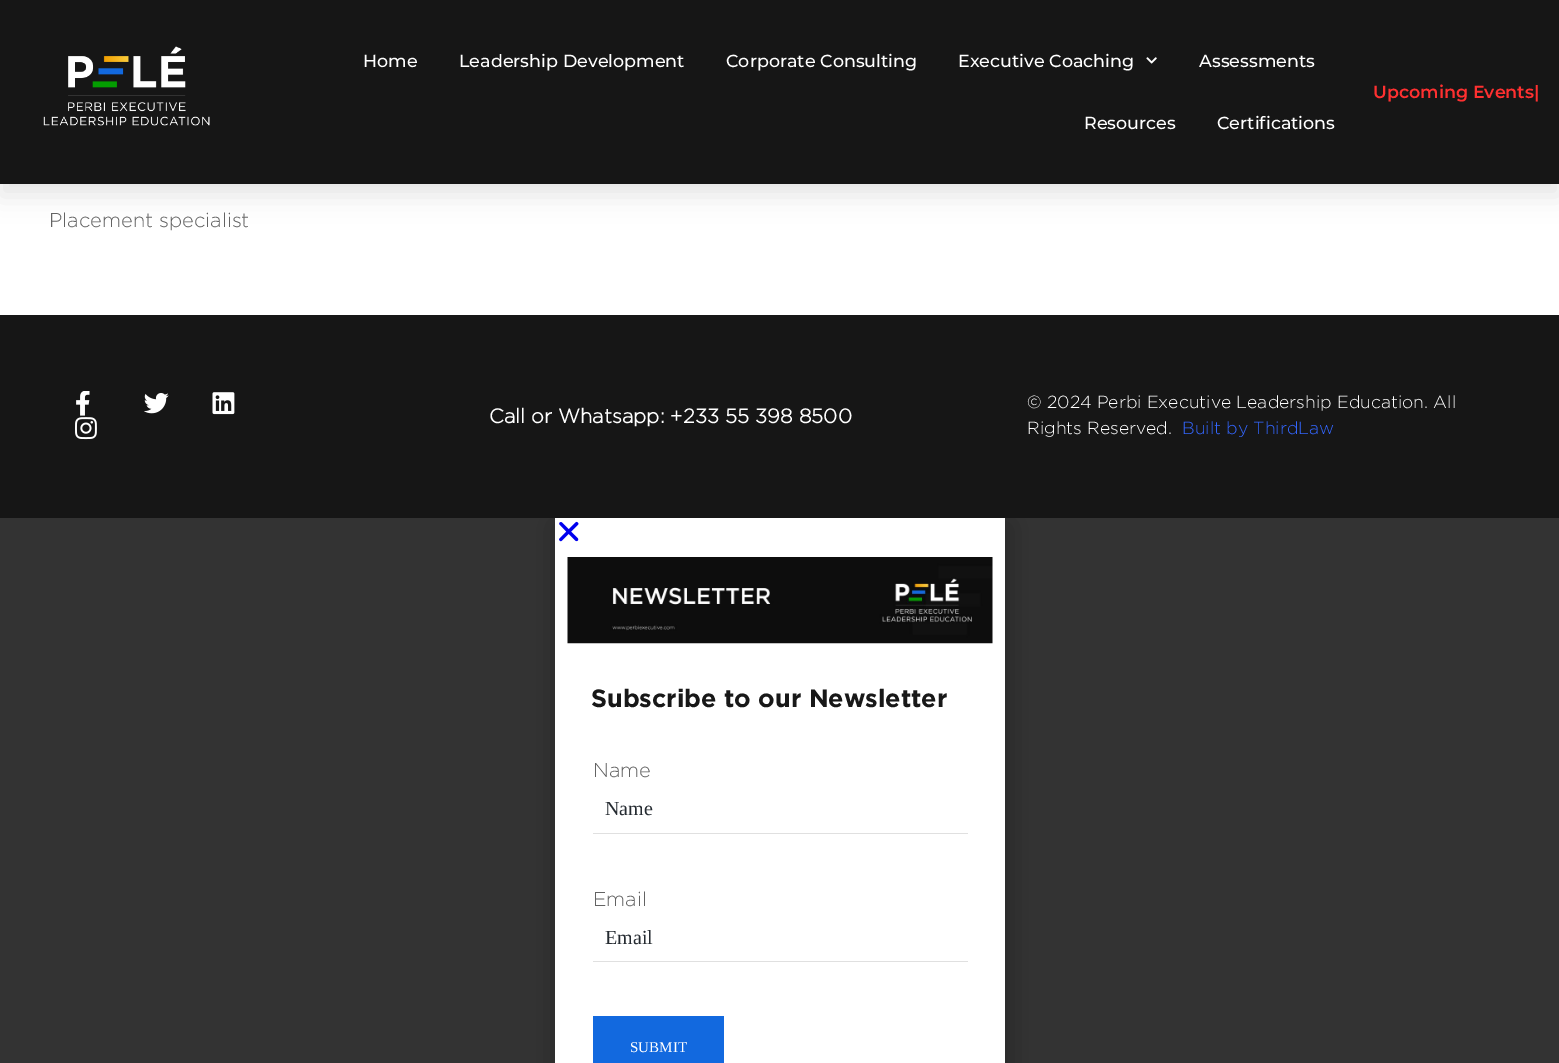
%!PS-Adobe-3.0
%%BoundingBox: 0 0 1559 1063
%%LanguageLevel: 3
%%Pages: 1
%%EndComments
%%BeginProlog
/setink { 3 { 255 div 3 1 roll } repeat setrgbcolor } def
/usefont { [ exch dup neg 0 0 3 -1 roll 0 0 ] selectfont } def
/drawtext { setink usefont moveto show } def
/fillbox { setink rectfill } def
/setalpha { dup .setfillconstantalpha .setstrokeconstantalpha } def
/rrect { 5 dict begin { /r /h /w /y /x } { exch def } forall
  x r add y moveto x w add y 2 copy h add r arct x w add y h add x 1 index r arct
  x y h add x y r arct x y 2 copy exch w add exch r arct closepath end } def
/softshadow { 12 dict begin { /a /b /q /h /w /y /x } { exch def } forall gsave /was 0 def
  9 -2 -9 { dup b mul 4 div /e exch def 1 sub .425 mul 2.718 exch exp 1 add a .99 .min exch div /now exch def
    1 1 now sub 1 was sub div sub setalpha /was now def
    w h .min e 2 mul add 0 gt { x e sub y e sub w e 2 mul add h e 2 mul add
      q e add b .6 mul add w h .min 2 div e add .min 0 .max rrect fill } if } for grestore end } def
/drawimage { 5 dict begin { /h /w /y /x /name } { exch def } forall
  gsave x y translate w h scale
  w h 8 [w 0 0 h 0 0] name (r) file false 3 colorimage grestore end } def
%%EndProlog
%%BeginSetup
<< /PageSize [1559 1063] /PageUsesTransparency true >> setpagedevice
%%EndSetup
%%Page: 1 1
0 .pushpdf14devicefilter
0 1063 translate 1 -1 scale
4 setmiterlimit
0 0 1559 1063 255 255 255 fillbox
0 0 0 setink
0 13 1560 183 0 12.5 0.1 softshadow
0 0 1559 184 22 22 22 fillbox
(assets/img1.rgb) 43 46 167 80 drawimage
(Home) 363 67 /Montserrat-Medium 17.5 255 255 255 drawtext
(Leadership Development) 459 67 /Montserrat-Medium 17.5 255 255 255 drawtext
(Corporate Consulting) 726 67 /Montserrat-Medium 17.5 255 255 255 drawtext
(Executive Coaching) 958 67 /Montserrat-Medium 17.5 255 255 255 drawtext
(assets/img2.rgb) 1146 57 11 7 drawimage
(Assessments) 1199 67 /Montserrat-Medium 17.5 255 255 255 drawtext
(Resources) 1084 129 /Montserrat-Medium 17.5 255 255 255 drawtext
(Certifications) 1217 129 /Montserrat-Medium 17.5 255 255 255 drawtext
(Upcoming Events|) 1373 98 /Montserrat-SemiBold 17.5 255 48 48 drawtext
(Placement specialist) 49 227 /Gotham-Light 20 99 99 99 drawtext
0 518 1559 545 51 51 51 fillbox
0 0 0 setink
554 524 457 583 0 14.5 0.2 softshadow
0 315 1559 203 22 22 22 fillbox
(assets/img3.rgb) 76 391 14 25 drawimage
(assets/img4.rgb) 144 393 25 21 drawimage
(assets/img5.rgb) 212 392 23 23 drawimage
(assets/img6.rgb) 75 417 22 23 drawimage
(Call or Whatsapp: +233 55 398 8500) 489 423 /Gotham-Bold 20 255 255 255 drawtext
(© 2024 Perbi Executive Leadership Education. All) 1027 408 /Gotham-Light 17.5 255 255 255 drawtext
(Rights Reserved.) 1027 434 /Gotham-Light 17.5 255 255 255 drawtext
(Built by ThirdLaw) 1182 434 /Gotham-Light 17.5 51 102 255 drawtext
555 518 450 545 255 255 255 fillbox
(assets/img7.rgb) 559 521 20 21 drawimage
(assets/img8.rgb) 567 557 426 87 drawimage
(Subscribe to our Newsletter) 591 707 /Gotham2-Bold 25 24 24 24 drawtext
(Name) 593 777 /Gotham-Light 20 99 99 99 drawtext
593 833 375 1 224 224 224 fillbox
(Name) 605 815 /LiberationSerif-Regular 20 37 43 49 drawtext
(Email) 593 906 /Gotham-Light 20 99 99 99 drawtext
593 961 375 1 224 224 224 fillbox
(Email) 605 944 /LiberationSerif-Regular 20 37 43 49 drawtext
593 1016 131 47 18 105 223 fillbox
(SUBMIT) 630 1052 /LiberationSerif-Regular 15 255 255 255 drawtext
.poppdf14devicefilter showpage
%%EOF
